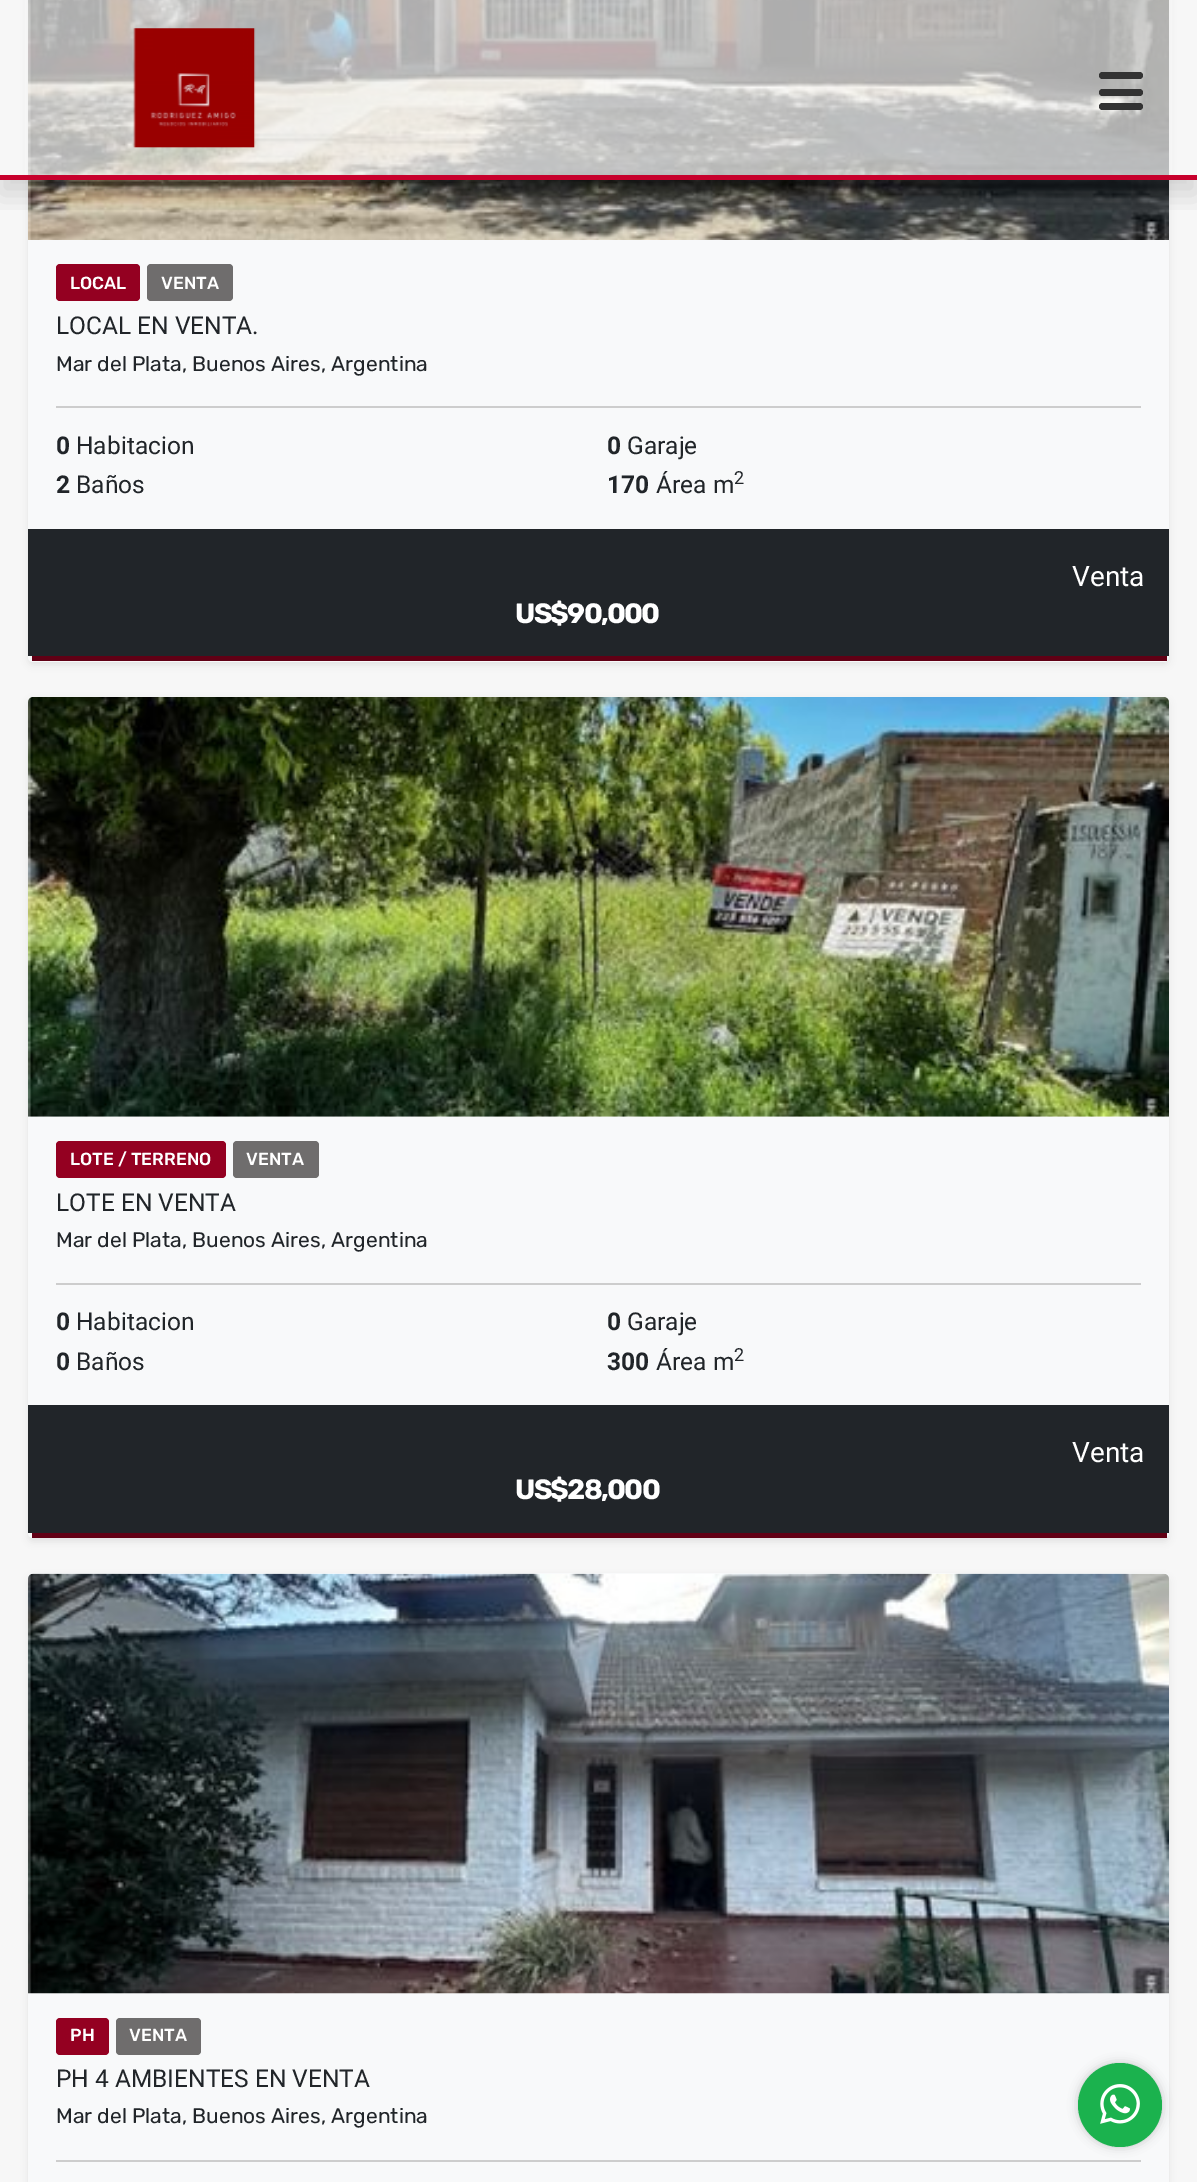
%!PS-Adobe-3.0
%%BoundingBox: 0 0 1197 2182
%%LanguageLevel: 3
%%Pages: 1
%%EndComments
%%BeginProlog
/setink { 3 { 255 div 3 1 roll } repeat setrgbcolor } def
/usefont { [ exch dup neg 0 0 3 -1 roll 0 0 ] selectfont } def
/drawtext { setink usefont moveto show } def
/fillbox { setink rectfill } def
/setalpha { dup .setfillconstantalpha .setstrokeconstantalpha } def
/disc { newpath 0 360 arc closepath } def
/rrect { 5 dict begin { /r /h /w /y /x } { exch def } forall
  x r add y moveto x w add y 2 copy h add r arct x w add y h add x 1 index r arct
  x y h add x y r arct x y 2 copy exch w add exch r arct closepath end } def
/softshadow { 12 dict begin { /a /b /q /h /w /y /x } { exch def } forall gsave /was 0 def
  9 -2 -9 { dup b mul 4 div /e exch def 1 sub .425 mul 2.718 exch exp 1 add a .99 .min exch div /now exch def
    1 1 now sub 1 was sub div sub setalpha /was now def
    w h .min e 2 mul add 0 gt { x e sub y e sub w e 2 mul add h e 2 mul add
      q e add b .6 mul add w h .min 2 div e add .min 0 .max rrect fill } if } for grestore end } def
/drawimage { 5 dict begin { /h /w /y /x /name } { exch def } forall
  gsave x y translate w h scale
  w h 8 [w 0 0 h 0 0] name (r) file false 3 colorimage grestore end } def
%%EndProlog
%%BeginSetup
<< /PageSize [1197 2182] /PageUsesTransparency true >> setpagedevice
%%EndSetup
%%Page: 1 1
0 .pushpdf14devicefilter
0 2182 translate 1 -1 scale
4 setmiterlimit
0 0 1197 2182 247 247 247 fillbox
0 0 0 setink
28 -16 1141 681 5 3.5 0.07 softshadow
248 249 250 setink
28 -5 1141 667 5 rrect fill
(assets/img2.rgb) 28 0 1141 240 drawimage
gsave
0 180 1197 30 rectclip
0 0 0 setink
0 14 1197 180 0 14 0.15 softshadow
grestore
0.7 setalpha
25 0 1147 175 247 247 247 fillbox
1 setalpha
0 175 1197 5 199 0 44 fillbox
(assets/img1.rgb) 133 28 123 120 drawimage
51 51 51 setink
1099 72 44 7 3.5 rrect fill
1099 89 44 7 3.5 rrect fill
1099 103 44 7 3.5 rrect fill
32 656 1135 5 97 0 21 fillbox
148 0 33 setink
56 264 84 37 4 rrect fill
(LOCAL) 70 289 /Rubik-Medium 17.5 255 255 255 drawtext
111 109 109 setink
147 264 86 37 4 rrect fill
(VENTA) 161 289 /Rubik-Medium 17.5 255 255 255 drawtext
(LOCAL EN VENTA.) 56 334 /Roboto-Regular 24.5 33 37 41 drawtext
(Mar del Plata, Buenos Aires, Argentina) 56 371 /Rubik-Regular 21 33 37 41 drawtext
56 406 1085 2 205 205 205 fillbox
(0) 56 454 /Roboto-Bold 24.5 33 37 41 drawtext
(Habitacion) 76 454 /Roboto-Regular 24.5 33 37 41 drawtext
(0) 607 454 /Roboto-Bold 24.5 33 37 41 drawtext
(Garaje) 627 454 /Roboto-Regular 24.5 33 37 41 drawtext
(2) 56 493 /Roboto-Bold 24.5 33 37 41 drawtext
(Baños) 76 493 /Roboto-Regular 24.5 33 37 41 drawtext
(170) 607 493 /Roboto-Bold 24.5 33 37 41 drawtext
(Área m) 656 493 /Roboto-Regular 24.5 33 37 41 drawtext
(2) 734 484 /Roboto-Regular 18 33 37 41 drawtext
28 529 1141 127 33 37 41 fillbox
(Venta) 1072 586 /Roboto-Regular 28 255 255 255 drawtext
/Rubik-Bold 28 usefont
515 623 moveto -1.75 0 (US$90,000) ashow
0 0 0 setink
28 700 1141 842 5 3.5 0.07 softshadow
248 249 250 setink
28 697 1141 841 5 rrect fill
32 1533 1135 5 97 0 21 fillbox
(assets/img3.rgb) 28 697 1141 420 drawimage
148 0 33 setink
56 1141 170 37 4 rrect fill
(LOTE / TERRENO) 70 1165 /Rubik-Medium 17.5 255 255 255 drawtext
111 109 109 setink
233 1141 86 37 4 rrect fill
(VENTA) 246 1165 /Rubik-Medium 17.5 255 255 255 drawtext
(LOTE EN VENTA) 56 1211 /Roboto-Regular 24.5 33 37 41 drawtext
(Mar del Plata, Buenos Aires, Argentina) 56 1247 /Rubik-Regular 21 33 37 41 drawtext
56 1283 1085 2 205 205 205 fillbox
(0) 56 1330 /Roboto-Bold 24.5 33 37 41 drawtext
(Habitacion) 76 1330 /Roboto-Regular 24.5 33 37 41 drawtext
(0) 607 1330 /Roboto-Bold 24.5 33 37 41 drawtext
(Garaje) 627 1330 /Roboto-Regular 24.5 33 37 41 drawtext
(0) 56 1370 /Roboto-Bold 24.5 33 37 41 drawtext
(Baños) 76 1370 /Roboto-Regular 24.5 33 37 41 drawtext
(300) 607 1370 /Roboto-Bold 24.5 33 37 41 drawtext
(Área m) 656 1370 /Roboto-Regular 24.5 33 37 41 drawtext
(2) 734 1361 /Roboto-Regular 18 33 37 41 drawtext
28 1405 1141 128 33 37 41 fillbox
(Venta) 1072 1462 /Roboto-Regular 28 255 255 255 drawtext
/Rubik-Bold 28 usefont
515 1499 moveto -1.75 0 (US$28,000) ashow
0 0 0 setink
28 1577 1141 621 5 3.5 0.07 softshadow
248 249 250 setink
28 1573 1141 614 5 rrect fill
(assets/img4.rgb) 28 1573 1141 421 drawimage
148 0 33 setink
56 2018 53 37 4 rrect fill
(PH) 70 2041 /Rubik-Medium 17.5 255 255 255 drawtext
111 109 109 setink
116 2018 85 37 4 rrect fill
(VENTA) 129 2041 /Rubik-Medium 17.5 255 255 255 drawtext
(PH 4 AMBIENTES EN VENTA) 56 2087 /Roboto-Regular 24.5 33 37 41 drawtext
(Mar del Plata, Buenos Aires, Argentina) 56 2123 /Rubik-Regular 21 33 37 41 drawtext
56 2160 1085 2 205 205 205 fillbox
0 0 0 setink
1078 2063 84 84 42 5 0.2 softshadow
27 178 78 setink
1120 2105 42 disc fill
(assets/img5.rgb) 1100 2084 40 40 drawimage
.poppdf14devicefilter showpage
%%EOF
